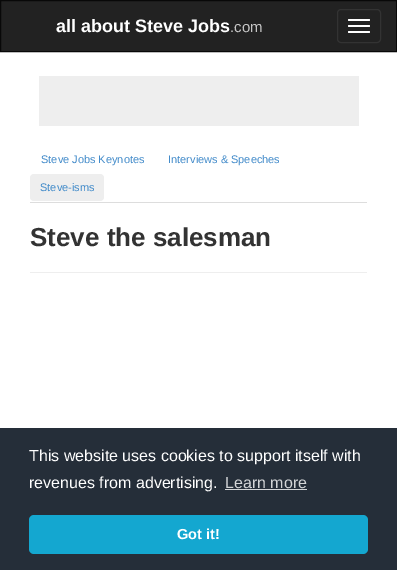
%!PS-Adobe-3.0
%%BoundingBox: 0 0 397 570
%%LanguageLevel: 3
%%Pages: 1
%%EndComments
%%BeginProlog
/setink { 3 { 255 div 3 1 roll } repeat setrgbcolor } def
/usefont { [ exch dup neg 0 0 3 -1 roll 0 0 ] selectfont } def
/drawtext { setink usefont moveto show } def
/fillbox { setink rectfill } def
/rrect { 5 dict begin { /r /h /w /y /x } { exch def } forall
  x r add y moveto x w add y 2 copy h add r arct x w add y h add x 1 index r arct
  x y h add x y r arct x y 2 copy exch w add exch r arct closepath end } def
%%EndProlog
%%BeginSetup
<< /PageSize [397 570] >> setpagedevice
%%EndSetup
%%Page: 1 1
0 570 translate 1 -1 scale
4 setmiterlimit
0 0 397 570 255 255 255 fillbox
34 34 34 setink
0.5 0.5 moveto 396.5 0.5 lineto 396.5 51.5 lineto 0.5 51.5 lineto closepath gsave fill grestore
8 8 8 setink
stroke
(all about Steve Jobs) 56 32 /LiberationSans-Bold 18 255 255 255 drawtext
(.com) 230 32 /LiberationSans-Regular 15 198 198 198 drawtext
51 51 51 setink
337.5 9.5 43 33 3.5 rrect stroke
255 255 255 setink
348 19 22 2 1 rrect fill
348 25 22 2 1 rrect fill
348 31 22 2 1 rrect fill
39 76 320 50 238 238 238 fillbox
30 202 337 1 221 221 221 fillbox
(Steve Jobs Keynotes) 41 163 /LiberationSans-Regular 11 66 139 202 drawtext
(Interviews & Speeches) 168 163 /LiberationSans-Regular 11 66 139 202 drawtext
238 238 238 setink
30 174 74 27 4 rrect fill
(Steve-isms) 40 191 /LiberationSans-Regular 11 66 139 202 drawtext
(Steve the salesman) 30 246 /LiberationSans-Bold 26 51 51 51 drawtext
30 272 337 1 238 238 238 fillbox
0 428 397 142 37 46 57 fillbox
(This website uses cookies to support itself with) 29 461 /LiberationSans-Regular 16 255 255 255 drawtext
(revenues from advertising.) 29 488 /LiberationSans-Regular 16 255 255 255 drawtext
(Learn more) 225 488 /LiberationSans-Regular 16 211 213 215 drawtext
225 489 82 1 211 213 215 fillbox
20 167 208 setink
29 515 339 39 5 rrect fill
(Got it!) 177 539 /LiberationSans-Bold 14.5 255 255 255 drawtext
showpage
%%EOF
